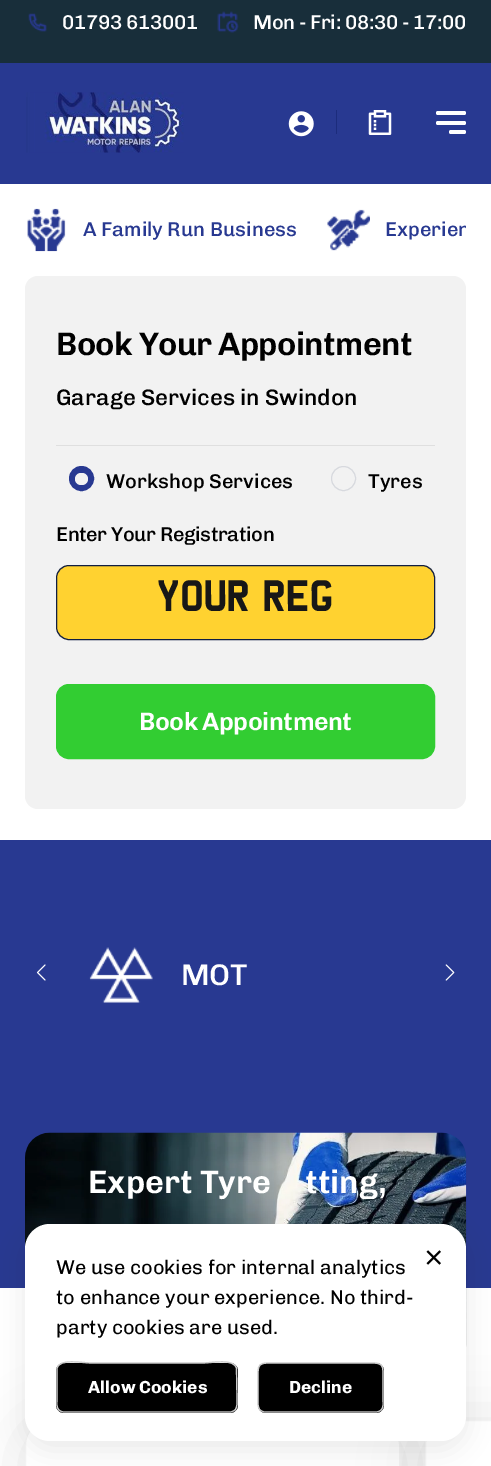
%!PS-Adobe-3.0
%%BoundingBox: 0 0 491 1466
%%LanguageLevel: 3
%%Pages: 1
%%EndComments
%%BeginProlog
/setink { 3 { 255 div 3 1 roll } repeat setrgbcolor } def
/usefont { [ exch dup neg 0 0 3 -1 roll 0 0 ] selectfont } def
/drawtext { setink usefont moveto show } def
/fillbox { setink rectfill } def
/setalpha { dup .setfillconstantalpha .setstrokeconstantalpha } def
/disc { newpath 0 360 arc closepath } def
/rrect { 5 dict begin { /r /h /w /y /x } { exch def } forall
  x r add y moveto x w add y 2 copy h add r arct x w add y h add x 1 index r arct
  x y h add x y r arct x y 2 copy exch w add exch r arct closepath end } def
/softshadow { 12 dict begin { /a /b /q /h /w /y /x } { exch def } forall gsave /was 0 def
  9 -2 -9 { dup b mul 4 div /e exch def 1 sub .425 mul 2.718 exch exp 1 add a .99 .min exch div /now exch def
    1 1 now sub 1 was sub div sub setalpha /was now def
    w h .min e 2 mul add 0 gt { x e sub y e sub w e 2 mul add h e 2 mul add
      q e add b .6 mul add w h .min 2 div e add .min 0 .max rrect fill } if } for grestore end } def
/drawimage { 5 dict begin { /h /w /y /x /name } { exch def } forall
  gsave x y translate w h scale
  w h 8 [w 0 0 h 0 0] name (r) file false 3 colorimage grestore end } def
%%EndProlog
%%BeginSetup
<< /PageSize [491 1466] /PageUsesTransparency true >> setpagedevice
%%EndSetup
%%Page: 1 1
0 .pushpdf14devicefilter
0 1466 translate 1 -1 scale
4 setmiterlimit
0 0 491 1466 255 255 255 fillbox
0 0 491 63 24 46 58 fillbox
(assets/img1.rgb) 28 13 19 19 drawimage
/Chivo-Medium 20 usefont
255 255 255 setink
62 29 moveto -0.35 0 (01793 613001) ashow
(assets/img2.rgb) 217 11 22 22 drawimage
253 29 moveto -0.35 0 (Mon - Fri: 08:30 - 17:00) ashow
0 63 491 121 40 57 145 fillbox
(assets/img3.rgb) 26 92 158 61 drawimage
(assets/img4.rgb) 288 111 26 26 drawimage
336 110 1 24 28 44 124 fillbox
(assets/img5.rgb) 368 110 24 25 drawimage
255 255 255 setink
436 111 30 4 2 rrect fill
436 121 30 4 2 rrect fill
449 130 17 4 2 rrect fill
(assets/img6.rgb) 27 208 39 44 drawimage
(A Family Run Business) 83 236 /Chivo-Medium 20 40 57 145 drawtext
(assets/img7.rgb) 327 209 43 42 drawimage
gsave
25 209 441 42 rectclip
(Experien) 385 236 /Chivo-Medium 20 40 57 145 drawtext
grestore
242 242 242 setink
25 276 441 533 13 rrect fill
56 445 379 1 223 223 223 fillbox
/Chivo-SemiBold 32.5 usefont
0 0 0 setink
56 355 moveto -0.65 0 (Book Your Appointment) ashow
(Garage Services in Swindon) 56 405 /Chivo-Medium 22.5 0 0 0 drawtext
40 57 145 setink
81.5 478.5 11 disc gsave fill grestore
3 setlinewidth
stroke
242 242 242 setink
75 473 13 12 6 rrect fill
(Workshop Services) 106 488 /Chivo-Medium 20 0 0 0 drawtext
215 217 222 setink
1 setlinewidth
343.5 478.5 12 disc stroke
(Tyres) 368 488 /Chivo-Medium 20 0 0 0 drawtext
56 541 moveto -0.4 0 (Enter Your Registration) ashow
255 210 48 setink
56.5 565.5 378 74 12.5 rrect gsave fill grestore
16 30 67 setink
stroke
/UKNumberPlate-Regular 45 usefont
23 23 23 setink
156 611 moveto -1 0 (YOUR REG) ashow
50 205 50 setink
56.5 684.5 378 74 12.5 rrect gsave fill grestore
stroke
/Chivo-SemiBold 25 usefont
255 255 255 setink
139 730 moveto -0.5 0 (Book Appointment) ashow
0 840 491 448 40 57 145 fillbox
(assets/img8.rgb) 36 964 10 17 drawimage
(assets/img9.rgb) 89 947 64 56 drawimage
/Chivo-Medium 30 usefont
255 255 255 setink
181 985 moveto -0.5 0 (MOT) ashow
(assets/img10.rgb) 445 964 10 17 drawimage
0 0 0 setink
25 1425 375 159 25 31 0.1 softshadow
255 255 255 setink
25.5 1420.5 374 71 24.5 rrect gsave fill grestore
244 244 244 setink
stroke
0 0 0 setink
425 1425 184 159 25 31 0.1 softshadow
(assets/img11.rgb) 25 1132 442 215 drawimage
(Expert Tyre) 88 1193 /Chivo-SemiBold 32.5 255 255 255 drawtext
(tting,) 305 1193 /Chivo-SemiBold 32.5 255 255 255 drawtext
450 1420 moveto 491 1420 lineto 491 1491 lineto 450 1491 lineto 436 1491 425 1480 425 1466 curveto 425 1445 lineto 425 1431 436 1420 450 1420 curveto closepath fill
244 244 244 setink
425.5 1420.5 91 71 24.5 rrect stroke
0 0 0 setink
25 1233 441 217 25 12.5 0.08 softshadow
255 255 255 setink
25 1224 441 217 25 rrect fill
(assets/img12.rgb) 426 1250 15 15 drawimage
(We use cookies for internal analytics) 56 1274 /Chivo-Regular 19.9 0 0 0 drawtext
(to enhance your experience. No third-) 56 1304 /Chivo-Regular 19.9 0 0 0 drawtext
(party cookies are used.) 56 1334 /Chivo-Regular 19.9 0 0 0 drawtext
56 1363 182 50 8 rrect fill
187 187 187 setink
1.2 setlinewidth
235 1410 moveto 233.5 1411 232 1412 230 1412 curveto 64 1412 lineto 62 1412 60 1411 59 1410 curveto stroke
204 204 204 setink
59 1410 moveto 56 1407 57 1403 57 1399 curveto 57 1368.5 lineto 59 1358 82 1363 91.5 1363 curveto 202.5 1363 lineto 212 1363 234.5 1358 236.5 1368.5 curveto 237 1399 lineto 237 1403 237.5 1407 235 1410 curveto stroke
(Allow Cookies) 88 1393 /Chivo-Bold 17.5 255 255 255 drawtext
0 0 0 setink
258 1363 126 50 8 rrect fill
187 187 187 setink
381 1410 moveto 380 1411 378 1412 376 1412 curveto 265 1412 lineto 263 1412 261.5 1411 260 1410 curveto stroke
204 204 204 setink
260 1410 moveto 257.5 1407 258 1403 258 1399 curveto 258 1387.5 lineto 258 1360 255 1363 283.5 1363 curveto 357.5 1363 lineto 386.5 1363 383 1360 383 1387.5 curveto 383 1399 lineto 383 1403 384 1407 381 1410 curveto stroke
(Decline) 289 1393 /Chivo-Bold 17.5 255 255 255 drawtext
.poppdf14devicefilter showpage
%%EOF
